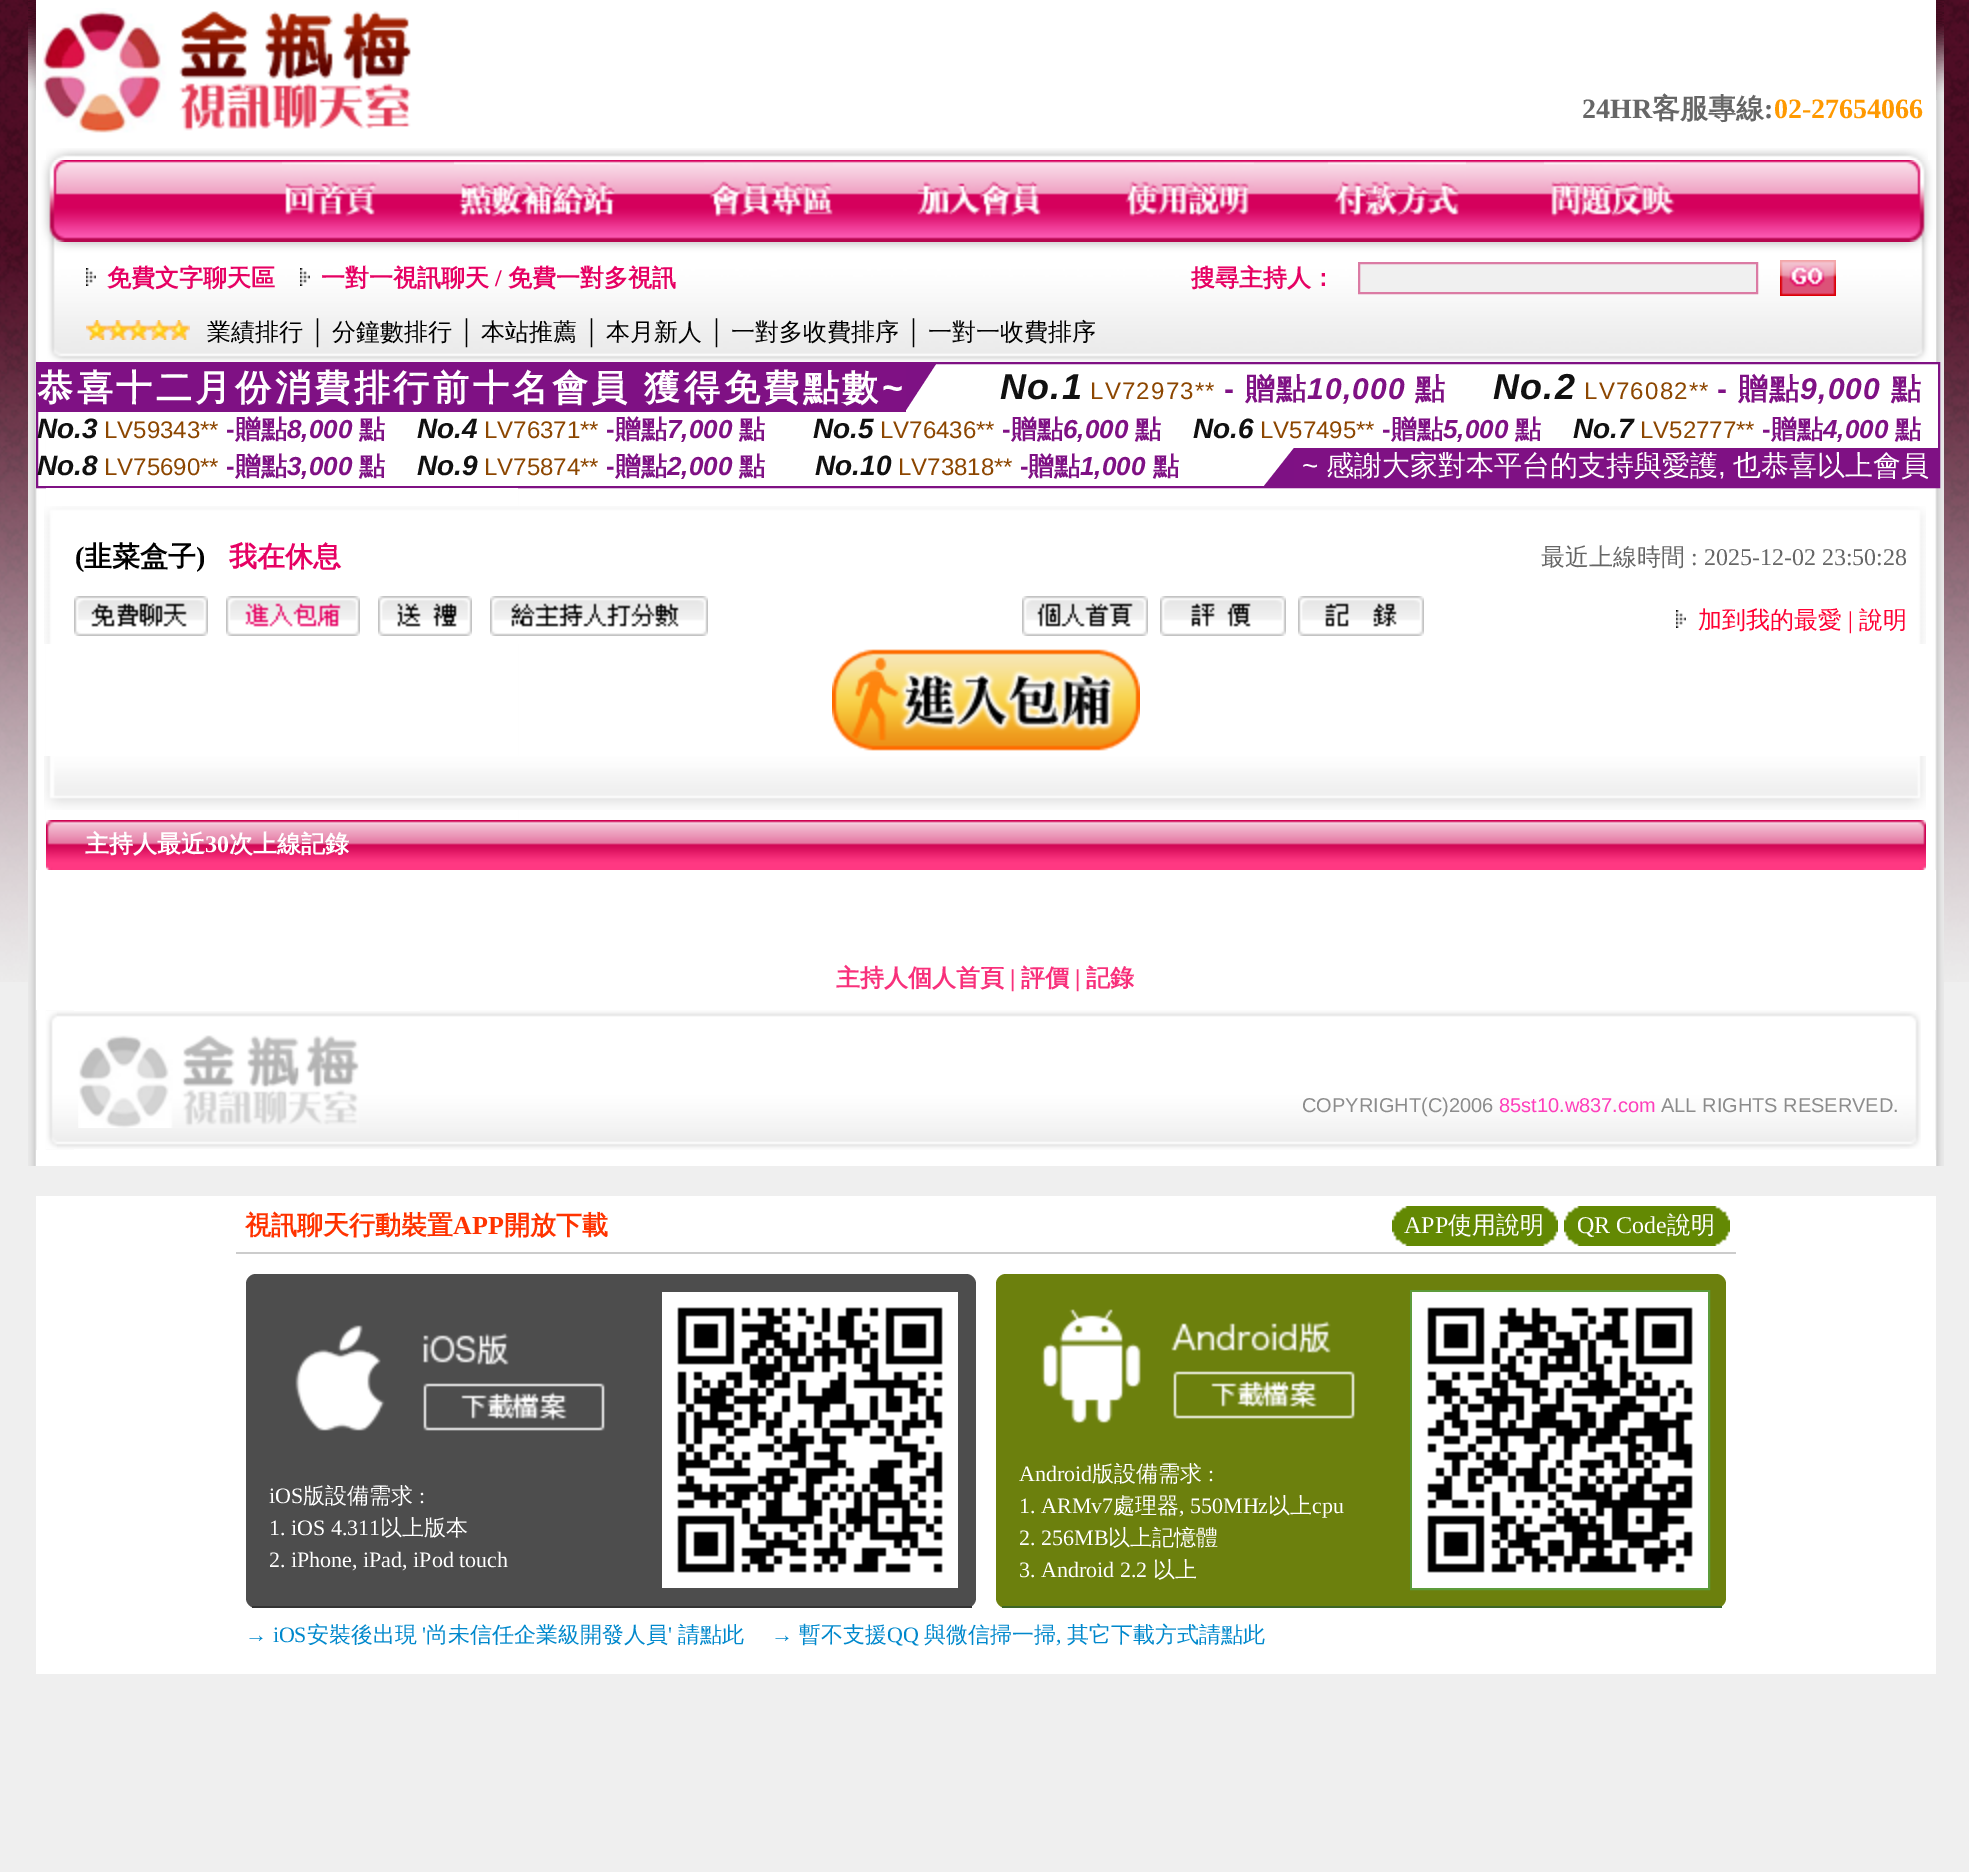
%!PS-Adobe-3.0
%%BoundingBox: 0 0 1969 1872
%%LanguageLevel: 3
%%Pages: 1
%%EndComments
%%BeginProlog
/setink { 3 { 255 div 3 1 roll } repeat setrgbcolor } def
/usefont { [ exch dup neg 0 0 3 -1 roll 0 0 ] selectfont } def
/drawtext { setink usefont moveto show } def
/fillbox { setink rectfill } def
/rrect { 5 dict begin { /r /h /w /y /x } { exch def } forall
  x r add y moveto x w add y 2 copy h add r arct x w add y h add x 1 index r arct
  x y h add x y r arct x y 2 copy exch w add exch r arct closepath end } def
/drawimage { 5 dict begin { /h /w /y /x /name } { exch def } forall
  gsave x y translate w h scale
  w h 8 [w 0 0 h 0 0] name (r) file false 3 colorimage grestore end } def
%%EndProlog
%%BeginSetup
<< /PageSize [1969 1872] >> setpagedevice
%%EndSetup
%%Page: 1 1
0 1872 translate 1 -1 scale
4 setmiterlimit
0 0 1969 1872 239 239 239 fillbox
(assets/img1.rgb) 0 0 1969 982 drawimage
(assets/img2.rgb) 28 100 1916 1066 drawimage
(assets/img3.rgb) 28 0 8 100 drawimage
(assets/img4.rgb) 1936 0 8 100 drawimage
36 0 1900 160 255 255 255 fillbox
(assets/img5.rgb) 42 8 369 125 drawimage
(24HR) 1582 118 /LiberationSerif-Bold 28 102 102 102 drawtext
(客服專線) 1652 118 /WenQuanYiZenHei-Bold 28 102 102 102 drawtext
(:) 1764 118 /LiberationSerif-Bold 28 102 102 102 drawtext
(02-27654066) 1774 118 /LiberationSerif-Bold 28 255 153 0 drawtext
(assets/img6.rgb) 46 148 1882 12 drawimage
(assets/img7.rgb) 67 160 1 82 drawimage
(assets/img8.rgb) 36 160 31 82 drawimage
(assets/img9.rgb) 68 160 1838 82 drawimage
(assets/img10.rgb) 282 161 98 56 drawimage
(assets/img11.rgb) 454 161 166 56 drawimage
(assets/img12.rgb) 704 162 129 55 drawimage
(assets/img13.rgb) 917 181 124 36 drawimage
(assets/img14.rgb) 1125 162 129 55 drawimage
(assets/img15.rgb) 1328 161 138 56 drawimage
(assets/img16.rgb) 1544 161 136 56 drawimage
(assets/img17.rgb) 1906 160 30 82 drawimage
(assets/img18.rgb) 36 242 1900 120 drawimage
(assets/img19.rgb) 86 268 10 18 drawimage
(免費文字聊天區) 107 286 /WenQuanYiZenHei-Bold 24 230 1 99 drawtext
(assets/img20.rgb) 300 268 10 18 drawimage
(一對一視訊聊天) 321 286 /WenQuanYiZenHei-Bold 24 230 1 99 drawtext
(/) 495 286 /LiberationSerif-Bold 24 230 1 99 drawtext
(免費一對多視訊) 508 286 /WenQuanYiZenHei-Bold 24 230 1 99 drawtext
(搜尋主持人：) 1191 286 /WenQuanYiZenHei-Bold 24 230 1 99 drawtext
240 240 240 setink
1359 263 moveto 1757 263 lineto 1757 293 lineto 1359 293 lineto closepath gsave fill grestore
219 123 164 setink
2 setlinewidth
stroke
(assets/img21.rgb) 1780 260 56 36 drawimage
(assets/img22.rgb) 86 320 104 20 drawimage
(業績排行) 207 340 /WenQuanYiZenHei-Medium 24 0 0 0 drawtext
(│) 309 340 /LiberationSerif-Regular 24 0 0 0 drawtext
(分鐘數排行) 332 340 /WenQuanYiZenHei-Medium 24 0 0 0 drawtext
(│) 458 340 /LiberationSerif-Regular 24 0 0 0 drawtext
(本站推薦) 481 340 /WenQuanYiZenHei-Medium 24 0 0 0 drawtext
(│) 583 340 /LiberationSerif-Regular 24 0 0 0 drawtext
(本月新人) 606 340 /WenQuanYiZenHei-Medium 24 0 0 0 drawtext
(│) 708 340 /LiberationSerif-Regular 24 0 0 0 drawtext
(一對多收費排序) 731 340 /WenQuanYiZenHei-Medium 24 0 0 0 drawtext
(│) 905 340 /LiberationSerif-Regular 24 0 0 0 drawtext
(一對一收費排序) 928 340 /WenQuanYiZenHei-Medium 24 0 0 0 drawtext
46 364 1892 122 255 255 255 fillbox
127 17 132 setink
37 363 1902 124 rectstroke
38 364 868 48 127 17 132 fillbox
/WenQuanYiZenHei-Bold 36 usefont
255 255 255 setink
37 400 moveto -1 0 32 3.6 0 (恭喜十二月份消費排行前十名會員 獲得免費點數) awidthshow
/LiberationSans-Bold 36 usefont
882 400 moveto 3.6 0 (~) ashow
126 17 132 setink
906 364 moveto 936 364 lineto 906 410 lineto closepath fill
/LiberationSans-BoldItalic 36 usefont
17 17 17 setink
1000 399 moveto 1.25 0 (No.1) ashow
/LiberationSans-Regular 24 usefont
140 70 0 setink
1090 399 moveto 1.25 0 (LV72973**) ashow
/LiberationSans-Bold 30 usefont
127 17 132 setink
1224 399 moveto 1.25 0 (-) ashow
/WenQuanYiZenHei-Bold 30 usefont
1245 399 moveto 1.25 0 (贈點) ashow
/LiberationSans-BoldItalic 30 usefont
1307 399 moveto 1.25 0 (10,000) ashow
/WenQuanYiZenHei-Bold 30 usefont
1415 399 moveto 1.25 0 (點) ashow
/LiberationSans-BoldItalic 36 usefont
17 17 17 setink
1493 399 moveto 1.25 0 (No.2) ashow
/LiberationSans-Regular 24 usefont
140 70 0 setink
1584 399 moveto 1.25 0 (LV76082**) ashow
/LiberationSans-Bold 30 usefont
127 17 132 setink
1717 399 moveto 1.25 0 (-) ashow
/WenQuanYiZenHei-Bold 30 usefont
1738 399 moveto 1.25 0 (贈點) ashow
/LiberationSans-BoldItalic 30 usefont
1800 399 moveto 1.25 0 (9,000) ashow
/WenQuanYiZenHei-Bold 30 usefont
1891 399 moveto 1.25 0 (點) ashow
(No.3) 37 438 /LiberationSans-BoldItalic 28 17 17 17 drawtext
(LV59343**) 104 438 /LiberationSans-Regular 24 140 70 0 drawtext
(-) 226 438 /LiberationSans-Bold 26 127 17 132 drawtext
(贈點) 235 438 /WenQuanYiZenHei-Bold 26 127 17 132 drawtext
(8,000) 287 438 /LiberationSans-BoldItalic 26 127 17 132 drawtext
(點) 359 438 /WenQuanYiZenHei-Bold 26 127 17 132 drawtext
(No.4) 417 438 /LiberationSans-BoldItalic 28 17 17 17 drawtext
(LV76371**) 484 438 /LiberationSans-Regular 24 140 70 0 drawtext
(-) 606 438 /LiberationSans-Bold 26 127 17 132 drawtext
(贈點) 615 438 /WenQuanYiZenHei-Bold 26 127 17 132 drawtext
(7,000) 667 438 /LiberationSans-BoldItalic 26 127 17 132 drawtext
(點) 739 438 /WenQuanYiZenHei-Bold 26 127 17 132 drawtext
(No.5) 813 438 /LiberationSans-BoldItalic 28 17 17 17 drawtext
(LV76436**) 880 438 /LiberationSans-Regular 24 140 70 0 drawtext
(-) 1002 438 /LiberationSans-Bold 26 127 17 132 drawtext
(贈點) 1011 438 /WenQuanYiZenHei-Bold 26 127 17 132 drawtext
(6,000) 1063 438 /LiberationSans-BoldItalic 26 127 17 132 drawtext
(點) 1135 438 /WenQuanYiZenHei-Bold 26 127 17 132 drawtext
(No.6) 1193 438 /LiberationSans-BoldItalic 28 17 17 17 drawtext
(LV57495**) 1260 438 /LiberationSans-Regular 24 140 70 0 drawtext
(-) 1382 438 /LiberationSans-Bold 26 127 17 132 drawtext
(贈點) 1391 438 /WenQuanYiZenHei-Bold 26 127 17 132 drawtext
(5,000) 1443 438 /LiberationSans-BoldItalic 26 127 17 132 drawtext
(點) 1515 438 /WenQuanYiZenHei-Bold 26 127 17 132 drawtext
(No.7) 1573 438 /LiberationSans-BoldItalic 28 17 17 17 drawtext
(LV52777**) 1640 438 /LiberationSans-Regular 24 140 70 0 drawtext
(-) 1762 438 /LiberationSans-Bold 26 127 17 132 drawtext
(贈點) 1771 438 /WenQuanYiZenHei-Bold 26 127 17 132 drawtext
(4,000) 1823 438 /LiberationSans-BoldItalic 26 127 17 132 drawtext
(點) 1895 438 /WenQuanYiZenHei-Bold 26 127 17 132 drawtext
(No.8) 37 475 /LiberationSans-BoldItalic 28 17 17 17 drawtext
(LV75690**) 104 475 /LiberationSans-Regular 24 140 70 0 drawtext
(-) 226 475 /LiberationSans-Bold 26 127 17 132 drawtext
(贈點) 235 475 /WenQuanYiZenHei-Bold 26 127 17 132 drawtext
(3,000) 287 475 /LiberationSans-BoldItalic 26 127 17 132 drawtext
(點) 359 475 /WenQuanYiZenHei-Bold 26 127 17 132 drawtext
(No.9) 417 475 /LiberationSans-BoldItalic 28 17 17 17 drawtext
(LV75874**) 484 475 /LiberationSans-Regular 24 140 70 0 drawtext
(-) 606 475 /LiberationSans-Bold 26 127 17 132 drawtext
(贈點) 615 475 /WenQuanYiZenHei-Bold 26 127 17 132 drawtext
(2,000) 667 475 /LiberationSans-BoldItalic 26 127 17 132 drawtext
(點) 739 475 /WenQuanYiZenHei-Bold 26 127 17 132 drawtext
(No.10) 815 475 /LiberationSans-BoldItalic 28 17 17 17 drawtext
(LV73818**) 898 475 /LiberationSans-Regular 24 140 70 0 drawtext
(-) 1020 475 /LiberationSans-Bold 26 127 17 132 drawtext
(贈點) 1028 475 /WenQuanYiZenHei-Bold 26 127 17 132 drawtext
(1,000) 1080 475 /LiberationSans-BoldItalic 26 127 17 132 drawtext
(點) 1153 475 /WenQuanYiZenHei-Bold 26 127 17 132 drawtext
126 17 132 setink
1294 486 moveto 1264 486 lineto 1294 448 lineto closepath fill
1294 448 644 38 127 17 132 fillbox
(~) 1302 475 /LiberationSans-Regular 28 255 255 255 drawtext
(感謝大家對本平台的支持與愛護) 1326 475 /WenQuanYiZenHei-Medium 28 255 255 255 drawtext
(也恭喜以上會員) 1733 475 /WenQuanYiZenHei-Medium 28 255 255 255 drawtext
(,) 1718 475 /LiberationSans-Regular 28 255 255 255 drawtext
46 488 472 332 255 255 255 fillbox
(assets/img23.rgb) 44 506 1882 12 drawimage
(assets/img24.rgb) 44 518 1882 126 drawimage
(\() 75 566 /LiberationSerif-Bold 28 0 0 0 drawtext
(韭菜盒子) 84 566 /WenQuanYiZenHei-Bold 28 0 0 0 drawtext
(\)) 196 566 /LiberationSerif-Bold 28 0 0 0 drawtext
(我在休息) 229 566 /WenQuanYiZenHei-Bold 28 230 1 99 drawtext
(最近上線時間) 1541 565 /WenQuanYiZenHei-Medium 24 102 102 102 drawtext
(: 2025-12-02 23:50:28) 1691 565 /LiberationSerif-Regular 24 102 102 102 drawtext
(assets/img25.rgb) 74 596 134 40 drawimage
(assets/img26.rgb) 226 596 134 40 drawimage
(assets/img27.rgb) 378 596 94 40 drawimage
(assets/img28.rgb) 490 596 218 40 drawimage
(assets/img29.rgb) 1022 596 126 40 drawimage
(assets/img30.rgb) 1160 596 126 40 drawimage
(assets/img31.rgb) 1298 596 126 40 drawimage
(assets/img32.rgb) 1676 610 10 18 drawimage
(加到我的最愛) 1698 628 /WenQuanYiZenHei-Medium 24 255 0 51 drawtext
(|) 1848 628 /LiberationSerif-Regular 24 255 0 51 drawtext
(說明) 1859 628 /WenQuanYiZenHei-Medium 24 255 0 51 drawtext
(assets/img33.rgb) 832 649 308 102 drawimage
(assets/img34.rgb) 44 756 1882 54 drawimage
(assets/img35.rgb) 54 820 32 50 drawimage
(assets/img36.rgb) 46 820 8 50 drawimage
(assets/img37.rgb) 86 820 1212 50 drawimage
(主持人最近) 85 852 /WenQuanYiZenHei-Bold 24 255 255 255 drawtext
(30) 205 852 /LiberationSerif-Bold 24 255 255 255 drawtext
(次上線記錄) 229 852 /WenQuanYiZenHei-Bold 24 255 255 255 drawtext
(assets/img38.rgb) 1298 820 620 50 drawimage
(assets/img39.rgb) 1918 820 8 50 drawimage
36 870 1900 140 255 255 255 fillbox
(主持人個人首頁) 836 986 /WenQuanYiZenHei-Bold 24 248 48 123 drawtext
(|) 1010 986 /LiberationSerif-Bold 24 248 48 123 drawtext
(評價) 1021 986 /WenQuanYiZenHei-Bold 24 248 48 123 drawtext
(|) 1075 986 /LiberationSerif-Bold 24 248 48 123 drawtext
(記錄) 1086 986 /WenQuanYiZenHei-Bold 24 248 48 123 drawtext
(assets/img40.rgb) 46 1010 28 140 drawimage
(assets/img41.rgb) 46 1011 11 138 drawimage
(assets/img42.rgb) 74 1011 346 138 drawimage
(assets/img43.rgb) 78 1035 281 93 drawimage
(assets/img44.rgb) 420 1010 1480 140 drawimage
(COPYRIGHT\(C\)2006) 1302 1112 /LiberationSans-Regular 20 140 140 140 drawtext
(85st10.w837.com) 1499 1112 /LiberationSans-Regular 20 254 62 187 drawtext
(ALL RIGHTS RESERVED.) 1661 1112 /LiberationSans-Regular 20 140 140 140 drawtext
(assets/img45.rgb) 1900 1011 21 138 drawimage
36 1150 1900 16 255 255 255 fillbox
36 1196 1900 478 255 255 255 fillbox
236 1252 1500 2 204 204 204 fillbox
(視訊聊天行動裝置) 245 1234 /WenQuanYiZenHei-Bold 26 255 51 0 drawtext
(APP) 453 1234 /LiberationSerif-Bold 26 255 51 0 drawtext
(開放下載) 504 1234 /WenQuanYiZenHei-Bold 26 255 51 0 drawtext
(assets/img46.rgb) 1392 1206 166 40 drawimage
(APP) 1404 1233 /LiberationSerif-Regular 24 255 255 255 drawtext
(使用說明) 1448 1233 /WenQuanYiZenHei-Medium 24 255 255 255 drawtext
(assets/img46.rgb) 1564 1206 166 40 drawimage
(QR Code) 1577 1233 /LiberationSerif-Regular 24 255 255 255 drawtext
(說明) 1667 1233 /WenQuanYiZenHei-Medium 24 255 255 255 drawtext
77 77 77 setink
246 1274 730 334 10 rrect fill
252 1606 720 2 51 51 51 fillbox
(assets/img47.rgb) 295 1325 310 106 drawimage
(assets/img48.rgb) 662 1292 296 296 drawimage
(iOS) 269 1503 /LiberationSerif-Regular 22 255 255 255 drawtext
(版設備需求) 303 1503 /WenQuanYiZenHei-Medium 22 255 255 255 drawtext
(:) 419 1503 /LiberationSerif-Regular 22 255 255 255 drawtext
(1. iOS 4.311) 269 1535 /LiberationSerif-Regular 22 255 255 255 drawtext
(以上版本) 380 1535 /WenQuanYiZenHei-Medium 22 255 255 255 drawtext
(2. iPhone, iPad, iPod touch) 269 1567 /LiberationSerif-Regular 22 255 255 255 drawtext
108 128 13 setink
996 1274 730 334 10 rrect fill
1002 1606 720 2 60 102 38 fillbox
(assets/img49.rgb) 1041 1309 314 115 drawimage
93 156 59 setink
1411 1291 298 298 rectstroke
(assets/img50.rgb) 1412 1292 296 296 drawimage
(Android) 1019 1481 /LiberationSerif-Regular 22 255 255 255 drawtext
(版設備需求) 1092 1481 /WenQuanYiZenHei-Medium 22 255 255 255 drawtext
(:) 1208 1481 /LiberationSerif-Regular 22 255 255 255 drawtext
(1. ARMv7) 1019 1513 /LiberationSerif-Regular 22 255 255 255 drawtext
(處理器) 1113 1513 /WenQuanYiZenHei-Medium 22 255 255 255 drawtext
(, 550MHz) 1179 1513 /LiberationSerif-Regular 22 255 255 255 drawtext
(以上) 1268 1513 /WenQuanYiZenHei-Medium 22 255 255 255 drawtext
(cpu) 1312 1513 /LiberationSerif-Regular 22 255 255 255 drawtext
(2. 256MB) 1019 1545 /LiberationSerif-Regular 22 255 255 255 drawtext
(以上記憶體) 1108 1545 /WenQuanYiZenHei-Medium 22 255 255 255 drawtext
(3. Android 2.2) 1019 1577 /LiberationSerif-Regular 22 255 255 255 drawtext
(以上) 1153 1577 /WenQuanYiZenHei-Medium 22 255 255 255 drawtext
(→ iOS) 245 1642 /LiberationSerif-Regular 22 0 136 204 drawtext
(安裝後出現) 307 1642 /WenQuanYiZenHei-Medium 22 0 136 204 drawtext
(') 422 1642 /LiberationSerif-Regular 22 0 136 204 drawtext
(尚未信任企業級開發人員) 426 1642 /WenQuanYiZenHei-Medium 22 0 136 204 drawtext
(') 668 1642 /LiberationSerif-Regular 22 0 136 204 drawtext
(請點此) 678 1642 /WenQuanYiZenHei-Medium 22 0 136 204 drawtext
(→) 771 1642 /LiberationSerif-Regular 22 0 136 204 drawtext
(暫不支援) 799 1642 /WenQuanYiZenHei-Medium 22 0 136 204 drawtext
(QQ) 887 1642 /LiberationSerif-Regular 22 0 136 204 drawtext
(與微信掃一掃) 924 1642 /WenQuanYiZenHei-Medium 22 0 136 204 drawtext
(其它下載方式請點此) 1067 1642 /WenQuanYiZenHei-Medium 22 0 136 204 drawtext
(,) 1056 1642 /LiberationSerif-Regular 22 0 136 204 drawtext
showpage
%%EOF
